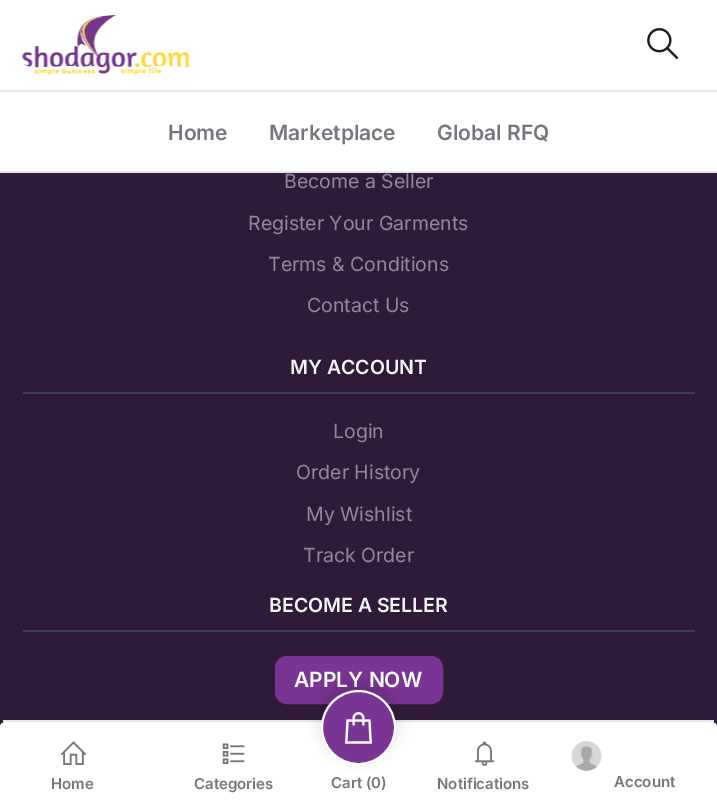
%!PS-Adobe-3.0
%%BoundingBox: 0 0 717 806
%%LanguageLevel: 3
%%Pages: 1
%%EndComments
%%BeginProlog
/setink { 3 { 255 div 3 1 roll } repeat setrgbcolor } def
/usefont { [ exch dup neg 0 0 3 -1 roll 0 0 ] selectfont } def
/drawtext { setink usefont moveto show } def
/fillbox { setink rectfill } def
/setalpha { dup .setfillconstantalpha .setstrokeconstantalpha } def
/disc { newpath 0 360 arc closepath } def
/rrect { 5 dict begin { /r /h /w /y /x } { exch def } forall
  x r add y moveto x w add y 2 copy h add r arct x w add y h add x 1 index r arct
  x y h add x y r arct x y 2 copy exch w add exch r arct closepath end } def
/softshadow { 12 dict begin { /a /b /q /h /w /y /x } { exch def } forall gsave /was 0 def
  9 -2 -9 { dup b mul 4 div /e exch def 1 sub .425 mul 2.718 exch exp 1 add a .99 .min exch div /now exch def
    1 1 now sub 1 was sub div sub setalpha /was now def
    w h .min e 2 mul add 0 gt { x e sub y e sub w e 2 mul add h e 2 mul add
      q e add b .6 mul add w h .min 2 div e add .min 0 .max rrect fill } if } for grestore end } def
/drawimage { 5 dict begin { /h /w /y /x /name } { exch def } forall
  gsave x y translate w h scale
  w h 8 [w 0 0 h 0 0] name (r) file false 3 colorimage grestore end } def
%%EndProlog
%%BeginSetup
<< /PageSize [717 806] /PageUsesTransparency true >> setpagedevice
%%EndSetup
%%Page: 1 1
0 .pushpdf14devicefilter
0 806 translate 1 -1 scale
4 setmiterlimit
0 0 717 806 47 27 55 fillbox
0 0 717 171 255 255 255 fillbox
0 171 717 2 226 229 236 fillbox
(assets/img1.rgb) 22 15 168 60 drawimage
(assets/img2.rgb) 647 28 32 32 drawimage
0 90 717 2 229 231 235 fillbox
(Home) 168 140 /Inter-SemiBold 21 118 118 126 drawtext
(Marketplace) 269 140 /Inter-SemiBold 21 118 118 126 drawtext
(Global RFQ) 437 140 /Inter-SemiBold 21 118 118 126 drawtext
(Become a Seller) 284 188 /Inter-Regular 19.5 145 135 152 drawtext
(Register Your Garments) 248 230 /Inter-Regular 19.5 145 135 152 drawtext
(Terms & Conditions) 268 271 /Inter-Regular 19.5 145 135 152 drawtext
(Contact Us) 307 312 /Inter-Regular 19.5 145 135 152 drawtext
23 392 672 2 55 65 81 fillbox
(MY ACCOUNT) 290 374 /Inter-SemiBold 19.5 242 243 248 drawtext
(Login) 333 438 /Inter-Regular 19.5 145 135 152 drawtext
(Order History) 296 479 /Inter-Regular 19.5 145 135 152 drawtext
(My Wishlist) 306 521 /Inter-Regular 19.5 145 135 152 drawtext
(Track Order) 303 562 /Inter-Regular 19.5 145 135 152 drawtext
23 630 672 2 55 65 81 fillbox
(BECOME A SELLER) 269 612 /Inter-SemiBold 19.5 242 243 248 drawtext
122 52 147 setink
276 657 166 46 11 rrect gsave fill grestore
2 setlinewidth
stroke
(APPLY NOW) 294 687 /Inter-SemiBold 21 255 255 255 drawtext
6 722 moveto 711 722 lineto 714 722 717 724 717 726 curveto 717 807 lineto 0 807 lineto 0 726 lineto 0 724 3 722 6 722 curveto closepath fill
3 720 711 2 226 229 236 fillbox
(assets/img3.rgb) 60 741 27 24 drawimage
(Home) 51 789 /Inter-SemiBold 15 118 118 126 drawtext
(assets/img4.rgb) 222 743 23 22 drawimage
(Categories) 194 789 /Inter-SemiBold 15 118 118 126 drawtext
0 0 0 setink
321 683 75 75 37.5 7.5 0.15 softshadow
122 52 147 setink
358.5 727.5 36.5 disc gsave fill grestore
255 255 255 setink
stroke
(assets/img5.rgb) 345 712 27 32 drawimage
(Cart \(0\)) 331 788 /Inter-SemiBold 15 118 118 126 drawtext
(assets/img6.rgb) 475 741 19 25 drawimage
(Notifications) 437 789 /Inter-SemiBold 15 118 118 126 drawtext
(assets/img7.rgb) 571 741 31 30 drawimage
(Account) 614 787 /Inter-SemiBold 15 118 118 126 drawtext
.poppdf14devicefilter showpage
%%EOF
